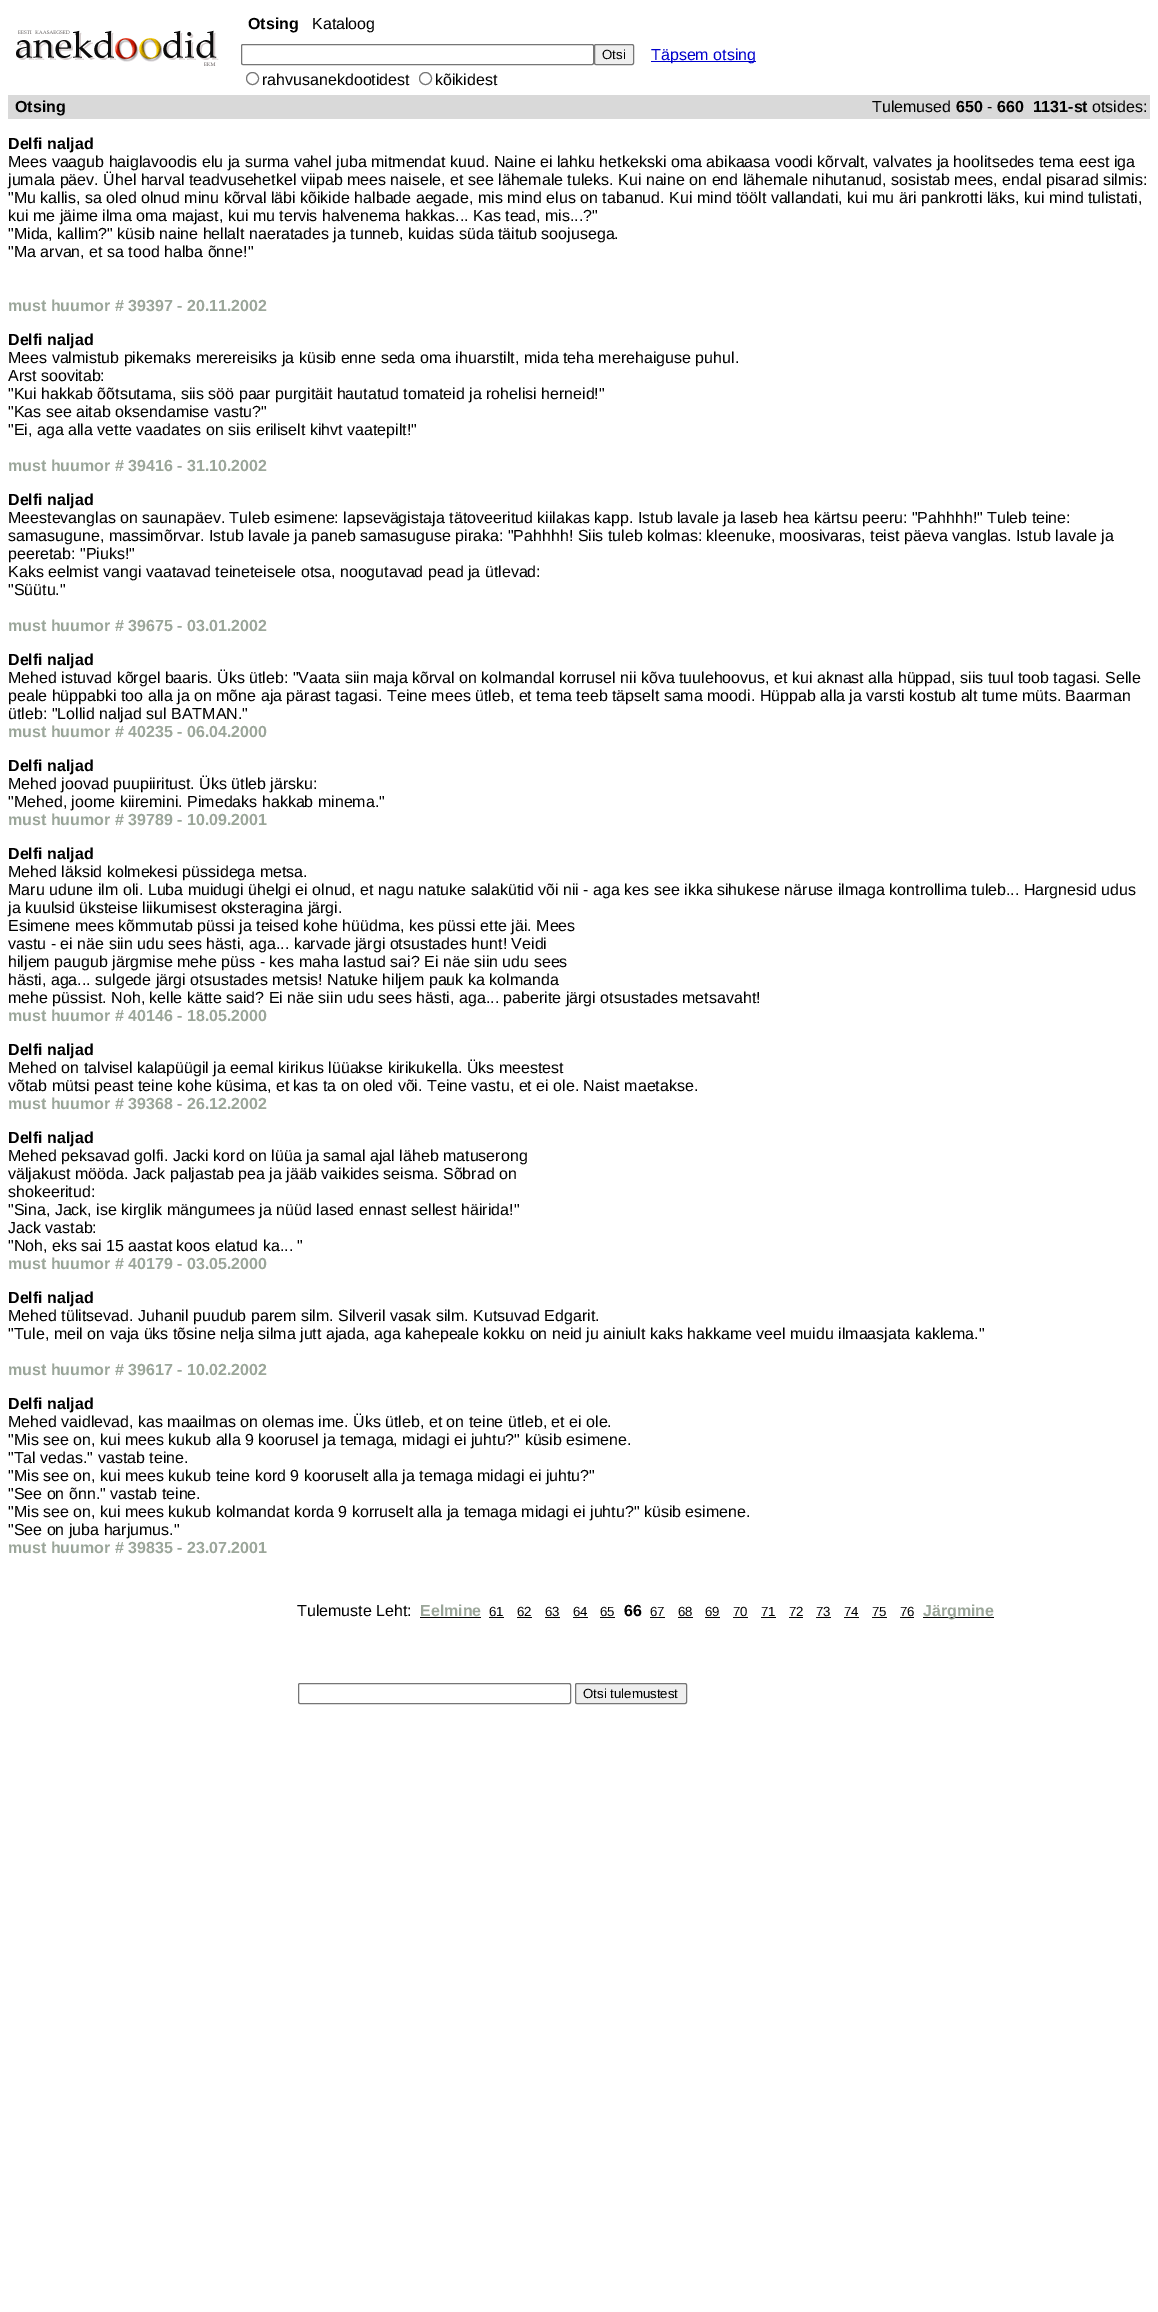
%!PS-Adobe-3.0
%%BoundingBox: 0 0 1158 2312
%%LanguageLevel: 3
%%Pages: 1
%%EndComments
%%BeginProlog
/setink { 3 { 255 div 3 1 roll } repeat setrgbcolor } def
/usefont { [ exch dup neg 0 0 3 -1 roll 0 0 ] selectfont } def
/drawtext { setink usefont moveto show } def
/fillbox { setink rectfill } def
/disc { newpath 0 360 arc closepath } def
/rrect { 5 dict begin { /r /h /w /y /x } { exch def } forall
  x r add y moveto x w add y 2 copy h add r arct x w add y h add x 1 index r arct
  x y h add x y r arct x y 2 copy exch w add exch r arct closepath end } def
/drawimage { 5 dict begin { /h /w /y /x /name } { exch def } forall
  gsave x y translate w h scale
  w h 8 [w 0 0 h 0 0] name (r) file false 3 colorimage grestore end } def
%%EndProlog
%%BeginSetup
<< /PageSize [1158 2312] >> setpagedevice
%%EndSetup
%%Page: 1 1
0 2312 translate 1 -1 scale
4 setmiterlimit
0 0 1158 2312 255 255 255 fillbox
(assets/img1.rgb) 16 30 203 36 drawimage
(Otsing) 248 29 /LiberationSans-Bold 16 0 0 0 drawtext
(Kataloog) 312 29 /LiberationSans-Regular 16 0 0 0 drawtext
118 118 118 setink
241.5 44.5 352 20 1.5 rrect stroke
239 239 239 setink
594.5 44.5 39 20 1.5 rrect gsave fill grestore
118 118 118 setink
stroke
(Otsi) 602 59 /LiberationSans-Regular 13.25 0 0 0 drawtext
651 61 105 1 0 0 204 fillbox
(Täpsem otsing) 651 60 /LiberationSans-Regular 16 0 0 204 drawtext
118 118 118 setink
252.5 78.5 6 disc stroke
(rahvusanekdootidest) 262 85 /LiberationSans-Regular 16 0 0 0 drawtext
118 118 118 setink
425.5 78.5 6 disc stroke
(kõikidest) 435 85 /LiberationSans-Regular 16 0 0 0 drawtext
8 95 1142 24 217 217 217 fillbox
(Otsing) 15 112 /LiberationSans-Bold 16 0 0 0 drawtext
(Tulemused) 872 112 /LiberationSans-Regular 16 0 0 0 drawtext
(650) 956 112 /LiberationSans-Bold 16 0 0 0 drawtext
(-) 987 112 /LiberationSans-Regular 16 0 0 0 drawtext
(660  1131-st) 997 112 /LiberationSans-Bold 16 0 0 0 drawtext
(otsides:) 1092 112 /LiberationSans-Regular 16 0 0 0 drawtext
(Delfi naljad) 8 149 /LiberationSans-Bold 16 0 0 0 drawtext
(Mees vaagub haiglavoodis elu ja surma vahel juba mitmendat kuud. Naine ei lahku hetkekski oma abikaasa voodi kõrvalt, valvates ja hoolitsedes tema eest iga) 8 167 /LiberationSans-Regular 16 0 0 0 drawtext
(jumala päev. Ühel harval teadvusehetkel viipab mees naisele, et see lähemale tuleks. Kui naine on end lähemale nihutanud, sosistab mees, endal pisarad silmis:) 8 185 /LiberationSans-Regular 16 0 0 0 drawtext
("Mu kallis, sa oled olnud minu kõrval läbi kõikide halbade aegade, mis mind elus on tabanud. Kui mind töölt vallandati, kui mu äri pankrotti läks, kui mind tulistati,) 8 203 /LiberationSans-Regular 16 0 0 0 drawtext
(kui me jäime ilma oma majast, kui mu tervis halvenema hakkas... Kas tead, mis...?") 8 221 /LiberationSans-Regular 16 0 0 0 drawtext
("Mida, kallim?" küsib naine hellalt naeratades ja tunneb, kuidas süda täitub soojusega.) 8 239 /LiberationSans-Regular 16 0 0 0 drawtext
("Ma arvan, et sa tood halba õnne!") 8 257 /LiberationSans-Regular 16 0 0 0 drawtext
(must huumor # 39397 - 20.11.2002) 8 311 /LiberationSans-Bold 16 155 166 154 drawtext
(Delfi naljad) 8 345 /LiberationSans-Bold 16 0 0 0 drawtext
(Mees valmistub pikemaks merereisiks ja küsib enne seda oma ihuarstilt, mida teha merehaiguse puhul.) 8 363 /LiberationSans-Regular 16 0 0 0 drawtext
(Arst soovitab:) 8 381 /LiberationSans-Regular 16 0 0 0 drawtext
("Kui hakkab õõtsutama, siis söö paar purgitäit hautatud tomateid ja rohelisi herneid!") 8 399 /LiberationSans-Regular 16 0 0 0 drawtext
("Kas see aitab oksendamise vastu?") 8 417 /LiberationSans-Regular 16 0 0 0 drawtext
("Ei, aga alla vette vaadates on siis eriliselt kihvt vaatepilt!") 8 435 /LiberationSans-Regular 16 0 0 0 drawtext
(must huumor # 39416 - 31.10.2002) 8 471 /LiberationSans-Bold 16 155 166 154 drawtext
(Delfi naljad) 8 505 /LiberationSans-Bold 16 0 0 0 drawtext
(Meestevanglas on saunapäev. Tuleb esimene: lapsevägistaja tätoveeritud kiilakas kapp. Istub lavale ja laseb hea kärtsu peeru: "Pahhhh!" Tuleb teine:) 8 523 /LiberationSans-Regular 16 0 0 0 drawtext
(samasugune, massimõrvar. Istub lavale ja paneb samasuguse piraka: "Pahhhh! Siis tuleb kolmas: kleenuke, moosivaras, teist päeva vanglas. Istub lavale ja) 8 541 /LiberationSans-Regular 16 0 0 0 drawtext
(peeretab: "Piuks!") 8 559 /LiberationSans-Regular 16 0 0 0 drawtext
(Kaks eelmist vangi vaatavad teineteisele otsa, noogutavad pead ja ütlevad:) 8 577 /LiberationSans-Regular 16 0 0 0 drawtext
("Süütu.") 8 595 /LiberationSans-Regular 16 0 0 0 drawtext
(must huumor # 39675 - 03.01.2002) 8 631 /LiberationSans-Bold 16 155 166 154 drawtext
(Delfi naljad) 8 665 /LiberationSans-Bold 16 0 0 0 drawtext
(Mehed istuvad kõrgel baaris. Üks ütleb: "Vaata siin maja kõrval on kolmandal korrusel nii kõva tuulehoovus, et kui aknast alla hüppad, siis tuul toob tagasi. Selle) 8 683 /LiberationSans-Regular 16 0 0 0 drawtext
(peale hüppabki too alla ja on mõne aja pärast tagasi. Teine mees ütleb, et tema teeb täpselt sama moodi. Hüppab alla ja varsti kostub alt tume müts. Baarman) 8 701 /LiberationSans-Regular 16 0 0 0 drawtext
(ütleb: "Lollid naljad sul BATMAN.") 8 719 /LiberationSans-Regular 16 0 0 0 drawtext
(must huumor # 40235 - 06.04.2000) 8 737 /LiberationSans-Bold 16 155 166 154 drawtext
(Delfi naljad) 8 771 /LiberationSans-Bold 16 0 0 0 drawtext
(Mehed joovad puupiiritust. Üks ütleb järsku:) 8 789 /LiberationSans-Regular 16 0 0 0 drawtext
("Mehed, joome kiiremini. Pimedaks hakkab minema.") 8 807 /LiberationSans-Regular 16 0 0 0 drawtext
(must huumor # 39789 - 10.09.2001) 8 825 /LiberationSans-Bold 16 155 166 154 drawtext
(Delfi naljad) 8 859 /LiberationSans-Bold 16 0 0 0 drawtext
(Mehed läksid kolmekesi püssidega metsa.) 8 877 /LiberationSans-Regular 16 0 0 0 drawtext
(Maru udune ilm oli. Luba muidugi ühelgi ei olnud, et nagu natuke salakütid või nii - aga kes see ikka sihukese näruse ilmaga kontrollima tuleb... Hargnesid udus) 8 895 /LiberationSans-Regular 16 0 0 0 drawtext
(ja kuulsid üksteise liikumisest oksteragina järgi.) 8 913 /LiberationSans-Regular 16 0 0 0 drawtext
(Esimene mees kõmmutab püssi ja teised kohe hüüdma, kes püssi ette jäi. Mees) 8 931 /LiberationSans-Regular 16 0 0 0 drawtext
(vastu - ei näe siin udu sees hästi, aga... karvade järgi otsustades hunt! Veidi) 8 949 /LiberationSans-Regular 16 0 0 0 drawtext
(hiljem paugub järgmise mehe püss - kes maha lastud sai? Ei näe siin udu sees) 8 967 /LiberationSans-Regular 16 0 0 0 drawtext
(hästi, aga... sulgede järgi otsustades metsis! Natuke hiljem pauk ka kolmanda) 8 985 /LiberationSans-Regular 16 0 0 0 drawtext
(mehe püssist. Noh, kelle kätte said? Ei näe siin udu sees hästi, aga... paberite järgi otsustades metsavaht!) 8 1003 /LiberationSans-Regular 16 0 0 0 drawtext
(must huumor # 40146 - 18.05.2000) 8 1021 /LiberationSans-Bold 16 155 166 154 drawtext
(Delfi naljad) 8 1055 /LiberationSans-Bold 16 0 0 0 drawtext
(Mehed on talvisel kalapüügil ja eemal kirikus lüüakse kirikukella. Üks meestest) 8 1073 /LiberationSans-Regular 16 0 0 0 drawtext
(võtab mütsi peast teine kohe küsima, et kas ta on oled või. Teine vastu, et ei ole. Naist maetakse.) 8 1091 /LiberationSans-Regular 16 0 0 0 drawtext
(must huumor # 39368 - 26.12.2002) 8 1109 /LiberationSans-Bold 16 155 166 154 drawtext
(Delfi naljad) 8 1143 /LiberationSans-Bold 16 0 0 0 drawtext
(Mehed peksavad golfi. Jacki kord on lüüa ja samal ajal läheb matuserong) 8 1161 /LiberationSans-Regular 16 0 0 0 drawtext
(väljakust mööda. Jack paljastab pea ja jääb vaikides seisma. Sõbrad on) 8 1179 /LiberationSans-Regular 16 0 0 0 drawtext
(shokeeritud:) 8 1197 /LiberationSans-Regular 16 0 0 0 drawtext
("Sina, Jack, ise kirglik mängumees ja nüüd lased ennast sellest häirida!") 8 1215 /LiberationSans-Regular 16 0 0 0 drawtext
(Jack vastab:) 8 1233 /LiberationSans-Regular 16 0 0 0 drawtext
("Noh, eks sai 15 aastat koos elatud ka... ") 8 1251 /LiberationSans-Regular 16 0 0 0 drawtext
(must huumor # 40179 - 03.05.2000) 8 1269 /LiberationSans-Bold 16 155 166 154 drawtext
(Delfi naljad) 8 1303 /LiberationSans-Bold 16 0 0 0 drawtext
(Mehed tülitsevad. Juhanil puudub parem silm. Silveril vasak silm. Kutsuvad Edgarit.) 8 1321 /LiberationSans-Regular 16 0 0 0 drawtext
("Tule, meil on vaja üks tõsine nelja silma jutt ajada, aga kahepeale kokku on neid ju ainiult kaks hakkame veel muidu ilmaasjata kaklema.") 8 1339 /LiberationSans-Regular 16 0 0 0 drawtext
(must huumor # 39617 - 10.02.2002) 8 1375 /LiberationSans-Bold 16 155 166 154 drawtext
(Delfi naljad) 8 1409 /LiberationSans-Bold 16 0 0 0 drawtext
(Mehed vaidlevad, kas maailmas on olemas ime. Üks ütleb, et on teine ütleb, et ei ole.) 8 1427 /LiberationSans-Regular 16 0 0 0 drawtext
("Mis see on, kui mees kukub alla 9 koorusel ja temaga, midagi ei juhtu?" küsib esimene.) 8 1445 /LiberationSans-Regular 16 0 0 0 drawtext
("Tal vedas." vastab teine.) 8 1463 /LiberationSans-Regular 16 0 0 0 drawtext
("Mis see on, kui mees kukub teine kord 9 kooruselt alla ja temaga midagi ei juhtu?") 8 1481 /LiberationSans-Regular 16 0 0 0 drawtext
("See on õnn." vastab teine.) 8 1499 /LiberationSans-Regular 16 0 0 0 drawtext
("Mis see on, kui mees kukub kolmandat korda 9 korruselt alla ja temaga midagi ei juhtu?" küsib esimene.) 8 1517 /LiberationSans-Regular 16 0 0 0 drawtext
("See on juba harjumus.") 8 1535 /LiberationSans-Regular 16 0 0 0 drawtext
(must huumor # 39835 - 23.07.2001) 8 1553 /LiberationSans-Bold 16 155 166 154 drawtext
(Tulemuste Leht:) 297 1616 /LiberationSans-Regular 16 0 0 0 drawtext
(Eelmine) 420 1616 /LiberationSans-Bold 16 155 166 154 drawtext
420 1617 61 1 0 0 0 fillbox
(61) 489 1616 /LiberationSans-Regular 13.25 0 0 0 drawtext
489 1617 15 1 0 0 0 fillbox
(62) 517 1616 /LiberationSans-Regular 13.25 0 0 0 drawtext
517 1617 15 1 0 0 0 fillbox
(63) 545 1616 /LiberationSans-Regular 13.25 0 0 0 drawtext
545 1617 15 1 0 0 0 fillbox
(64) 573 1616 /LiberationSans-Regular 13.25 0 0 0 drawtext
573 1617 15 1 0 0 0 fillbox
(65) 600 1616 /LiberationSans-Regular 13.25 0 0 0 drawtext
600 1617 15 1 0 0 0 fillbox
(66) 624 1616 /LiberationSans-Bold 16 0 0 0 drawtext
(67) 650 1616 /LiberationSans-Regular 13.25 0 0 0 drawtext
650 1617 15 1 0 0 0 fillbox
(68) 678 1616 /LiberationSans-Regular 13.25 0 0 0 drawtext
678 1617 15 1 0 0 0 fillbox
(69) 705 1616 /LiberationSans-Regular 13.25 0 0 0 drawtext
705 1617 15 1 0 0 0 fillbox
(70) 733 1616 /LiberationSans-Regular 13.25 0 0 0 drawtext
733 1617 15 1 0 0 0 fillbox
(71) 761 1616 /LiberationSans-Regular 13.25 0 0 0 drawtext
761 1617 15 1 0 0 0 fillbox
(72) 789 1616 /LiberationSans-Regular 13.25 0 0 0 drawtext
789 1617 14 1 0 0 0 fillbox
(73) 816 1616 /LiberationSans-Regular 13.25 0 0 0 drawtext
816 1617 15 1 0 0 0 fillbox
(74) 844 1616 /LiberationSans-Regular 13.25 0 0 0 drawtext
844 1617 15 1 0 0 0 fillbox
(75) 872 1616 /LiberationSans-Regular 13.25 0 0 0 drawtext
872 1617 15 1 0 0 0 fillbox
(76) 900 1616 /LiberationSans-Regular 13.25 0 0 0 drawtext
900 1617 14 1 0 0 0 fillbox
923 1617 71 1 0 0 0 fillbox
(Järgmine) 923 1616 /LiberationSans-Bold 16 155 166 154 drawtext
118 118 118 setink
298.5 1683.5 272 20 1.5 rrect stroke
239 239 239 setink
575.5 1683.5 111 20 1.5 rrect gsave fill grestore
118 118 118 setink
stroke
(Otsi tulemustest) 583 1698 /LiberationSans-Regular 13.25 0 0 0 drawtext
showpage
%%EOF
